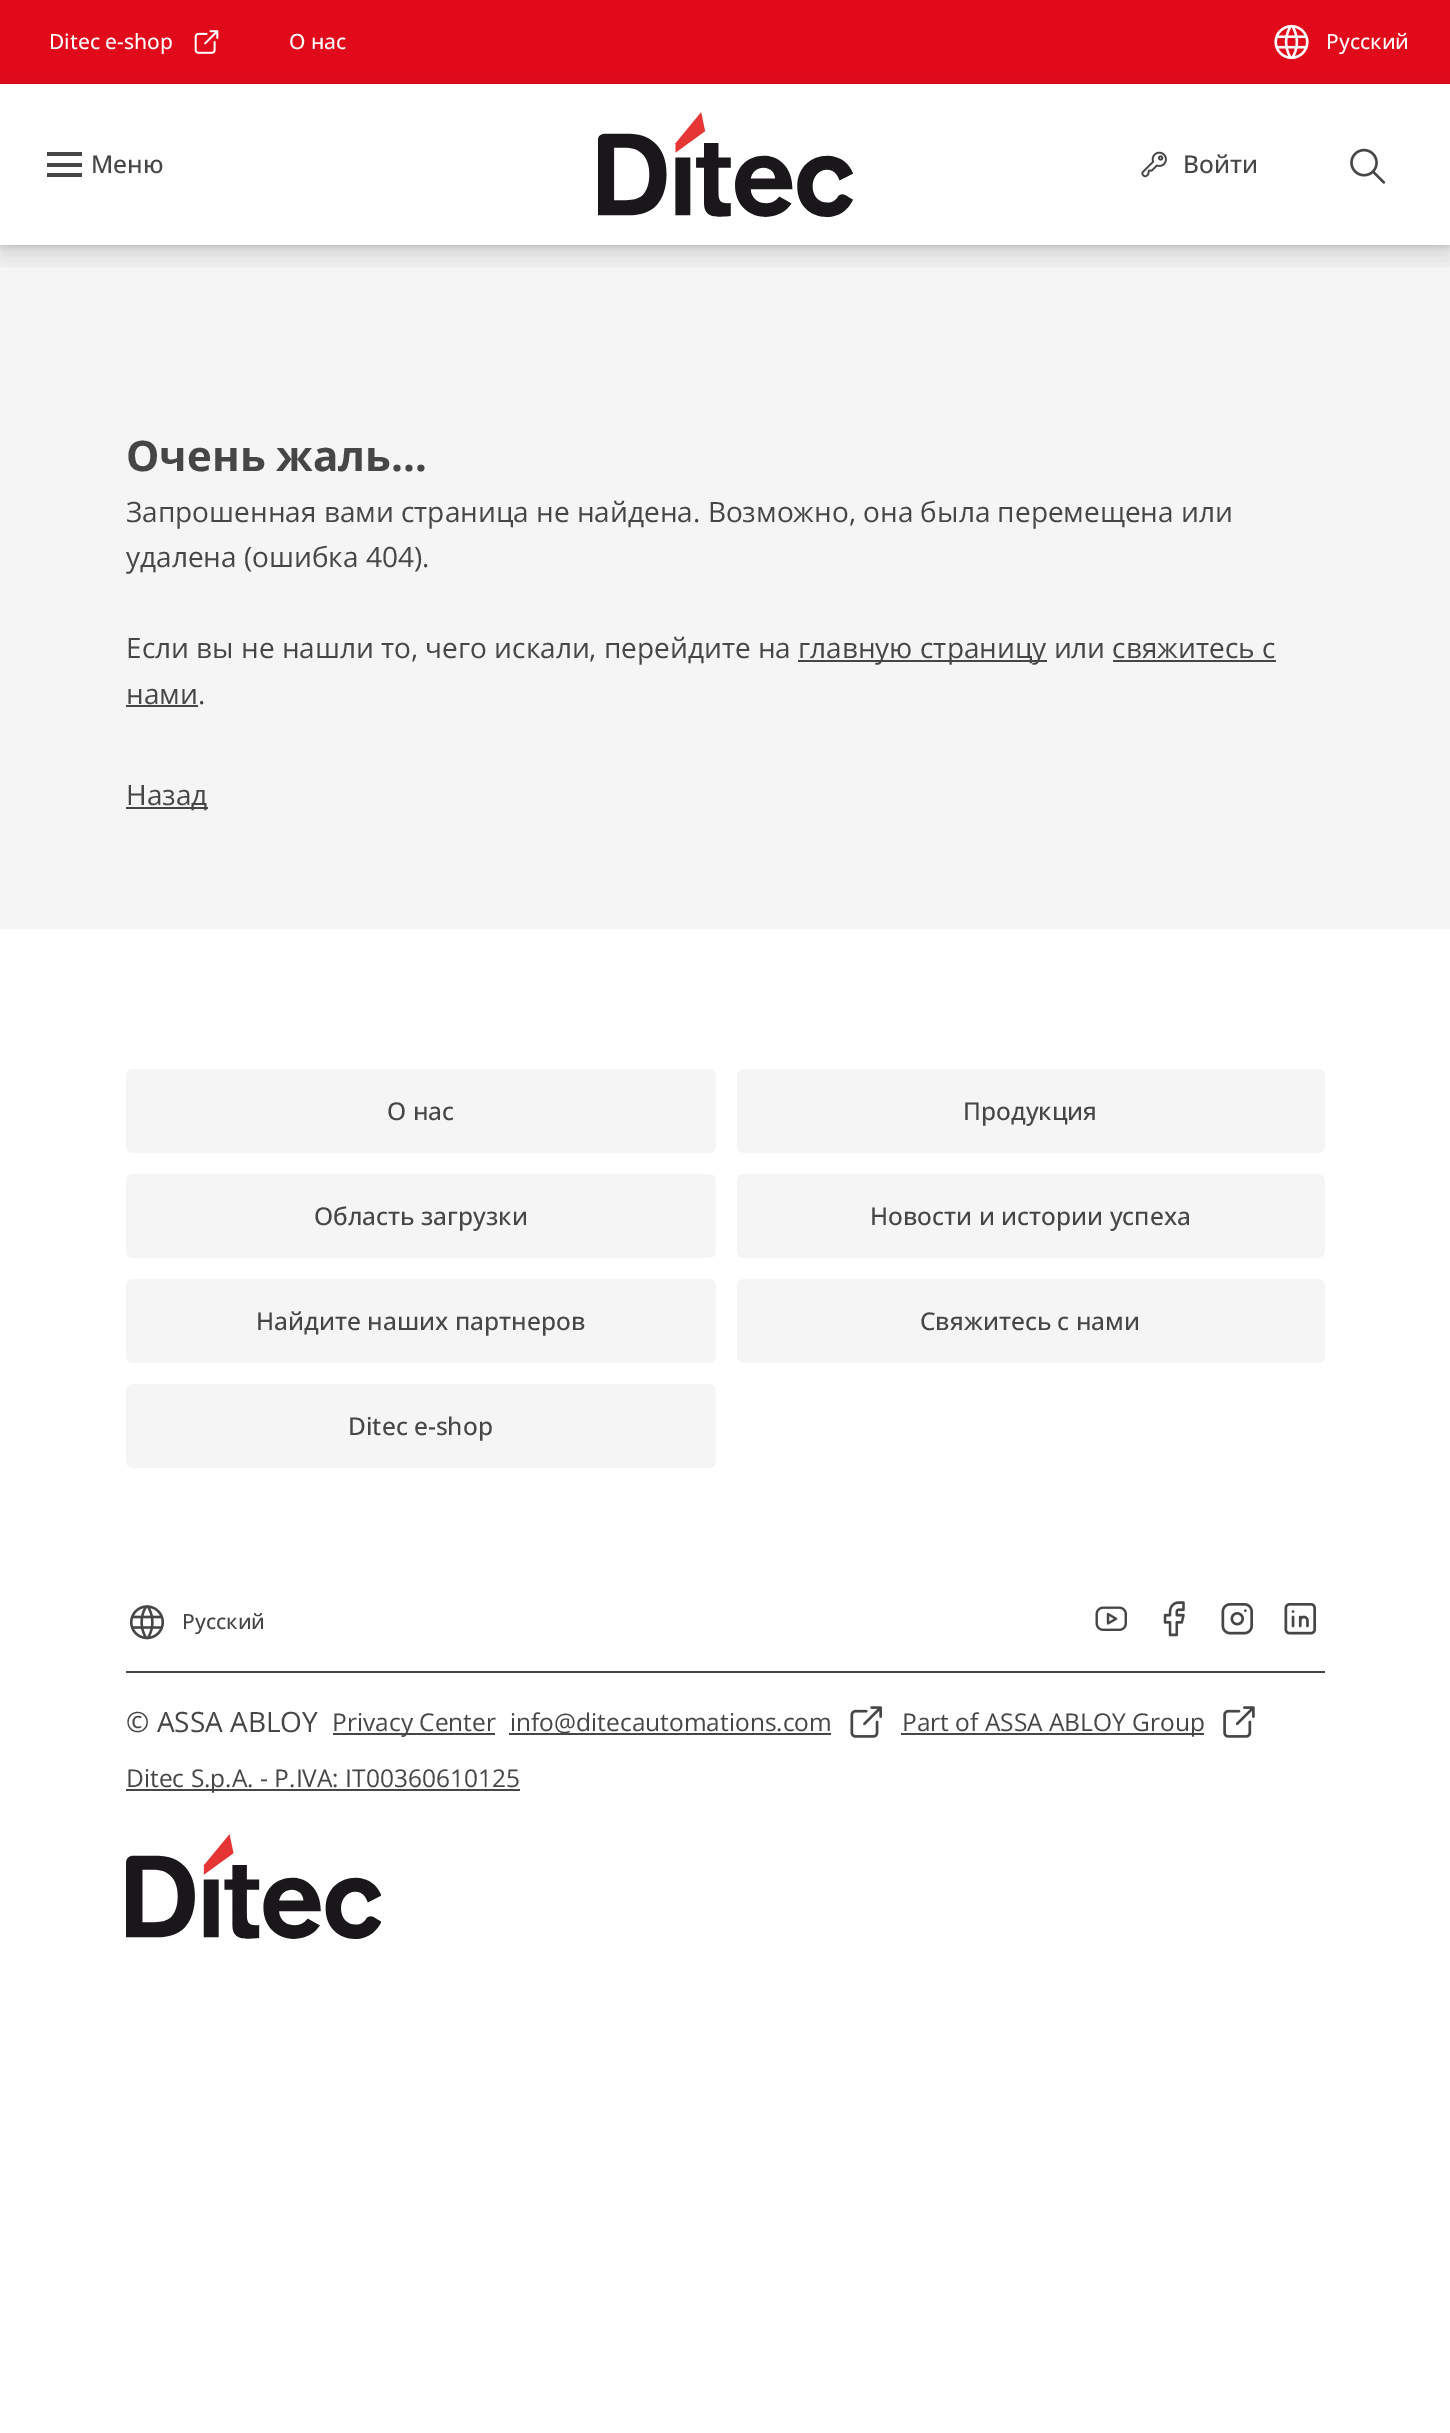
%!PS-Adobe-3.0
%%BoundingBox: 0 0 1450 2433
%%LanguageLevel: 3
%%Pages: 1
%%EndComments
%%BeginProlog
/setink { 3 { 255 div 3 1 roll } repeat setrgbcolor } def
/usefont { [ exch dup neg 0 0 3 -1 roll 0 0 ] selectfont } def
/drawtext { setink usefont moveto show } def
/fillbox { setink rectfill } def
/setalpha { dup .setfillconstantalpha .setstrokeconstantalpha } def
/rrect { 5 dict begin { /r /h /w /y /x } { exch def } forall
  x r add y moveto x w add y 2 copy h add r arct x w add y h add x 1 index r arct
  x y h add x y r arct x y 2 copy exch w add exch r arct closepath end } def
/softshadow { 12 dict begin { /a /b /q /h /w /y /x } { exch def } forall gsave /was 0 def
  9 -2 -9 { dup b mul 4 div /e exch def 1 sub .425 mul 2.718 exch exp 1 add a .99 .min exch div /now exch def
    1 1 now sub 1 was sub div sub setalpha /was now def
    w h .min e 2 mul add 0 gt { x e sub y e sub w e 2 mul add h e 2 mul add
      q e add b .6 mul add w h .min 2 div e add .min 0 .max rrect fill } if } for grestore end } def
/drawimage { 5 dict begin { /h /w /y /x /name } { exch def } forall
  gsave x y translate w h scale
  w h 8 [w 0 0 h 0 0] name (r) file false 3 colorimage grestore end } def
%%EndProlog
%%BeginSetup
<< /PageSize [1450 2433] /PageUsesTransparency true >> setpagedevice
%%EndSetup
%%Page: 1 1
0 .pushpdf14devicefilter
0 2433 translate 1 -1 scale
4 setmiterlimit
0 0 1450 2433 255 255 255 fillbox
0 0 1450 84 224 10 27 fillbox
(Ditec e-shop) 49 49 /OpenSans-Medium 21 255 255 255 drawtext
(assets/img1.rgb) 194 30 25 24 drawimage
(О нас) 289 49 /OpenSans-Medium 21 255 255 255 drawtext
(assets/img2.rgb) 1274 24 35 36 drawimage
(Русский) 1326 49 /OpenSans-Medium 21 255 255 255 drawtext
47 152 35 4 70 70 70 fillbox
47 163 35 4 70 70 70 fillbox
47 173 35 4 70 70 70 fillbox
(assets/img3.rgb) 598 112 255 105 drawimage
(assets/img4.rgb) 1141 151 26 27 drawimage
(assets/img5.rgb) 1350 148 36 36 drawimage
0 245 1450 684 245 245 245 fillbox
gsave
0 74 moveto 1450 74 lineto 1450 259 lineto 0 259 lineto closepath 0 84 moveto 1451 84 lineto 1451 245 lineto 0 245 lineto closepath eoclip newpath
0 0 0 setink
0 86 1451 161 0 3.5 0.15 softshadow
grestore
gsave
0 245 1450 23 rectclip
0 0 0 setink
0 98 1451 161 0 10.5 0.1 softshadow
grestore
(Меню) 91 173 /OpenSans-Medium 24.5 70 70 70 drawtext
(Войти) 1183 173 /OpenSans-Medium 24.5 70 70 70 drawtext
(Очень жаль…) 126 471 /OpenSans-Bold 42 70 70 70 drawtext
(Запрошенная вами страница не найдена. Возможно, она была перемещена или) 126 522 /OpenSans-Regular 28 70 70 70 drawtext
(удалена \(ошибка 404\).) 126 567 /OpenSans-Regular 28 70 70 70 drawtext
(Если вы не нашли то, чего искали, перейдите на) 126 658 /OpenSans-Regular 28 70 70 70 drawtext
798 660 249 2 70 70 70 fillbox
(главную страницу или свяжитесь с) 798 658 /OpenSans-Regular 28 70 70 70 drawtext
(нами.) 126 704 /OpenSans-Regular 28 70 70 70 drawtext
1113 660 163 2 70 70 70 fillbox
126 705 72 2 70 70 70 fillbox
126 807 82 2 70 70 70 fillbox
(Назад) 126 805 /OpenSans-Regular 28 70 70 70 drawtext
245 245 245 setink
126 1069 590 84 7 rrect fill
(О нас) 387 1120 /OpenSans-Medium 24.5 70 70 70 drawtext
245 245 245 setink
737 1069 588 84 7 rrect fill
(Продукция) 963 1120 /OpenSans-Medium 24.5 70 70 70 drawtext
245 245 245 setink
126 1174 590 84 7 rrect fill
(Область загрузки) 314 1225 /OpenSans-Medium 24.5 70 70 70 drawtext
245 245 245 setink
737 1174 588 84 7 rrect fill
(Новости и истории успеха) 870 1225 /OpenSans-Medium 24.5 70 70 70 drawtext
245 245 245 setink
126 1279 590 84 7 rrect fill
(Найдите наших партнеров) 256 1330 /OpenSans-Medium 24.5 70 70 70 drawtext
245 245 245 setink
737 1279 588 84 7 rrect fill
(Свяжитесь с нами) 920 1330 /OpenSans-Medium 24.5 70 70 70 drawtext
245 245 245 setink
126 1384 590 84 7 rrect fill
(Ditec e-shop) 348 1435 /OpenSans-Medium 24.5 70 70 70 drawtext
(assets/img6.rgb) 129 1605 36 35 drawimage
(Русский) 182 1629 /OpenSans-Medium 21 70 70 70 drawtext
(assets/img7.rgb) 1095 1606 32 25 drawimage
(assets/img8.rgb) 1163 1601 22 36 drawimage
(assets/img9.rgb) 1221 1603 32 32 drawimage
(assets/img10.rgb) 1284 1603 32 32 drawimage
126 1671 1199 2 70 70 70 fillbox
(© ASSA ABLOY) 126 1732 /OpenSans-Regular 28 70 70 70 drawtext
333 1733 162 2 70 70 70 fillbox
(Privacy Center) 332 1731 /OpenSans-Regular 24.5 70 70 70 drawtext
509 1733 322 2 70 70 70 fillbox
(info@ditecautomations.com) 510 1731 /OpenSans-Regular 24.5 70 70 70 drawtext
(assets/img11.rgb) 850 1706 32 32 drawimage
901 1733 303 2 70 70 70 fillbox
(Part of ASSA ABLOY Group) 902 1731 /OpenSans-Regular 24.5 70 70 70 drawtext
(assets/img12.rgb) 1223 1706 32 32 drawimage
126 1789 394 2 70 70 70 fillbox
(Ditec S.p.A. - P.IVA: IT00360610125) 126 1787 /OpenSans-Regular 24.5 70 70 70 drawtext
(assets/img13.rgb) 126 1834 256 105 drawimage
.poppdf14devicefilter showpage
%%EOF
